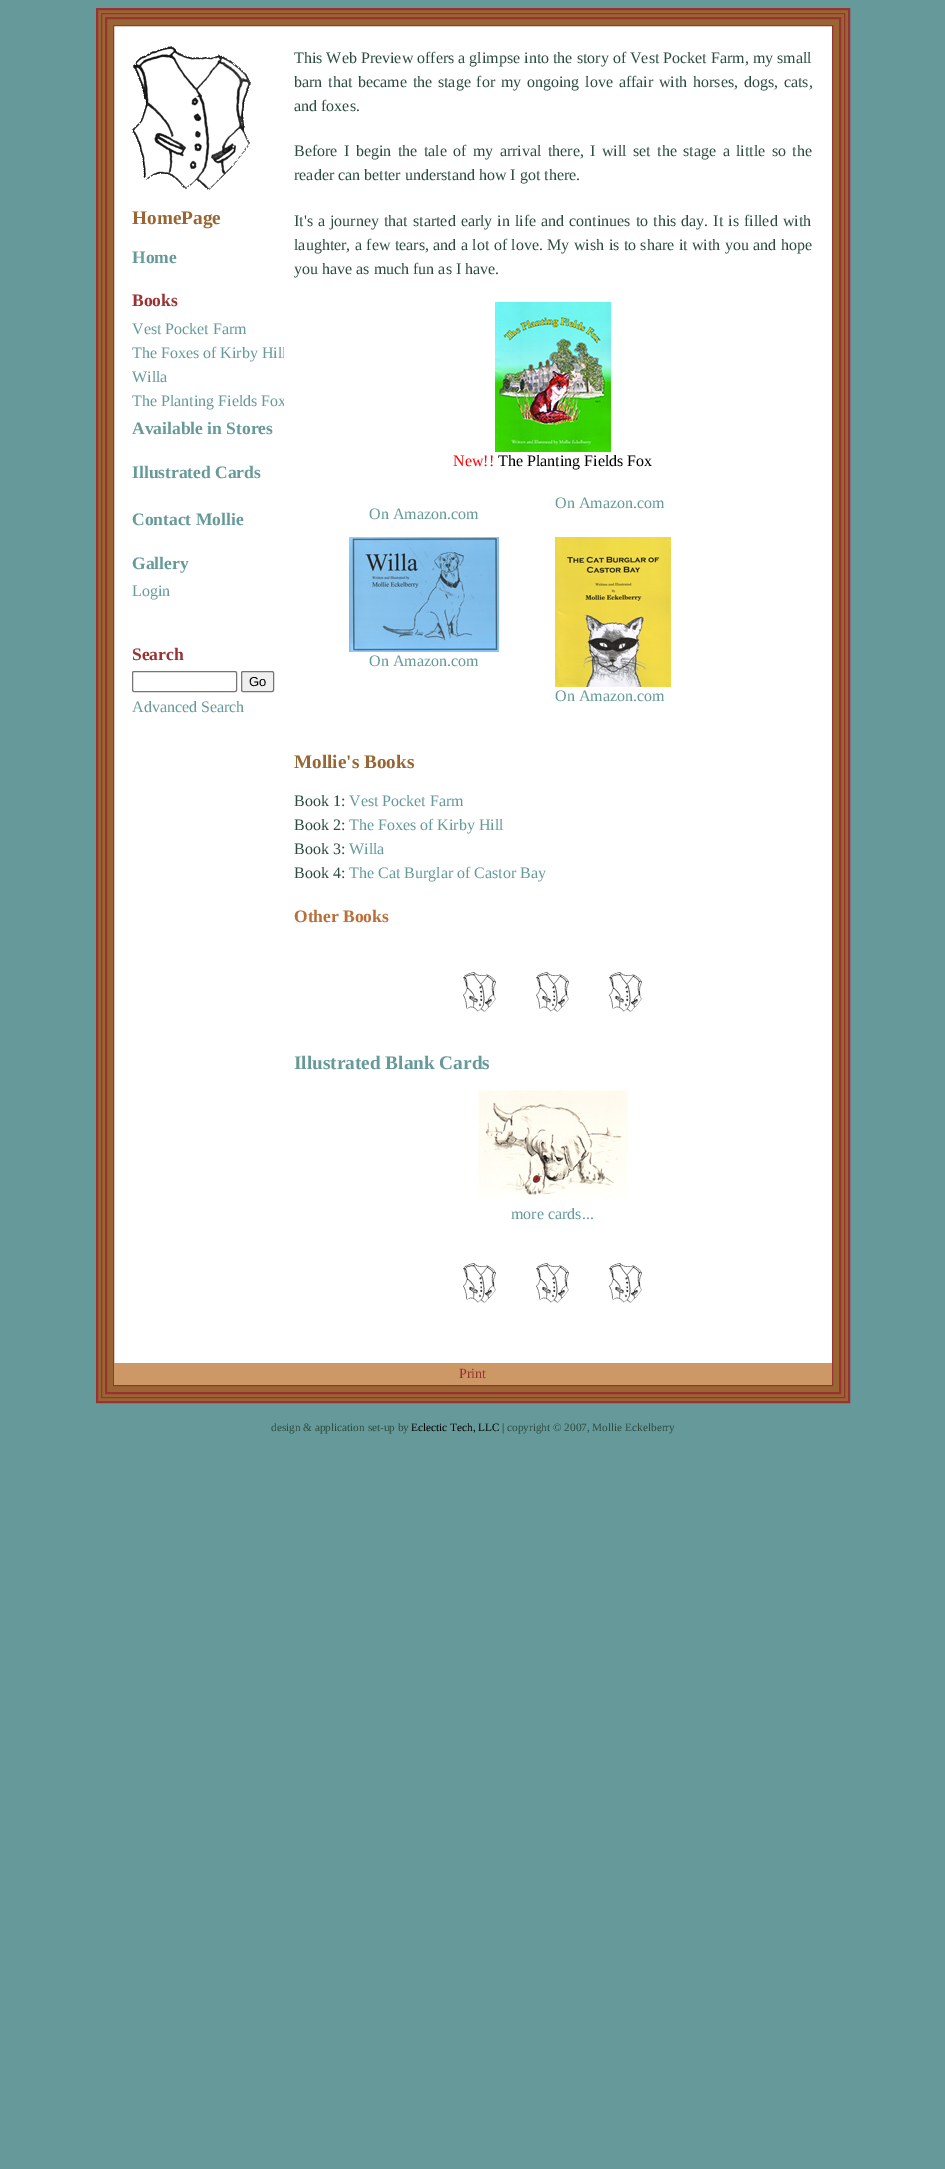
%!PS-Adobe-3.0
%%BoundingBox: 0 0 945 2169
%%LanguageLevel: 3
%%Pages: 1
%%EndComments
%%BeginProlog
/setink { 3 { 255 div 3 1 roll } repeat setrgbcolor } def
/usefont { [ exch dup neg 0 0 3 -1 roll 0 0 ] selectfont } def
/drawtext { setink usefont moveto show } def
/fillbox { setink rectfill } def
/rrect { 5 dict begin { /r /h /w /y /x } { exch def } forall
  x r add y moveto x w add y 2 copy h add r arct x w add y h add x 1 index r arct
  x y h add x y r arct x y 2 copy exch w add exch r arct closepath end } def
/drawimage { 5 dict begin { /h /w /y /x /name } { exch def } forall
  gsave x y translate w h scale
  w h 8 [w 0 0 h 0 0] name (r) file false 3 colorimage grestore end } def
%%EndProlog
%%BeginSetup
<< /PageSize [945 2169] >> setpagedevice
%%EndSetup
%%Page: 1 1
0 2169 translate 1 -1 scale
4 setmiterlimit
0 0 945 2169 102 153 153 fillbox
153 102 51 setink
97 9 moveto 849 9 lineto 849 1402 lineto 97 1402 lineto closepath gsave fill grestore
153 51 51 setink
2 setlinewidth
stroke
1 setlinewidth
101.5 13.5 743 1384 rectstroke
2 setlinewidth
106 18 734 1375 rectstroke
114 26 718 1337 255 255 255 fillbox
153 51 51 setink
1 setlinewidth
113.5 25.5 719 1360 rectstroke
(assets/img1.rgb) 132 46 119 144 drawimage
(HomePage) 132 224 /LiberationSerif-Bold 19.25 153 102 51 drawtext
(Home) 132 263 /LiberationSerif-Bold 17.5 102 153 153 drawtext
(Books) 132 306 /LiberationSerif-Bold 17.5 153 51 51 drawtext
(Vest Pocket Farm) 132 334 /LiberationSerif-Regular 16 102 153 153 drawtext
(The Foxes of Kirby Hill) 132 358 /LiberationSerif-Regular 16 102 153 153 drawtext
(Willa) 132 382 /LiberationSerif-Regular 16 102 153 153 drawtext
(The Planting Fields Fox) 132 406 /LiberationSerif-Regular 16 102 153 153 drawtext
(Available in Stores) 132 434 /LiberationSerif-Bold 17.5 102 153 153 drawtext
(Illustrated Cards) 132 478 /LiberationSerif-Bold 17.5 102 153 153 drawtext
(Contact Mollie) 132 525 /LiberationSerif-Bold 17.5 102 153 153 drawtext
(Gallery) 132 569 /LiberationSerif-Bold 17.5 102 153 153 drawtext
(Login) 132 596 /LiberationSerif-Regular 16 102 153 153 drawtext
(Search) 132 660 /LiberationSerif-Bold 17.5 153 51 51 drawtext
118 118 118 setink
132.5 671.5 104 20 1.5 rrect stroke
239 239 239 setink
241.5 671.5 32 20 1.5 rrect gsave fill grestore
118 118 118 setink
stroke
(Go) 249 686 /LiberationSans-Regular 13 0 0 0 drawtext
(Advanced Search) 132 712 /LiberationSerif-Regular 16 102 153 153 drawtext
284 346 2 60 255 255 255 fillbox
(This Web Preview offers a glimpse into the story of Vest Pocket Farm, my small) 294 63 /LiberationSerif-Regular 16 45 77 66 drawtext
294 87 moveto 1.75 0 32 (barn that became the stage for my ongoing love affair with horses, dogs, cats,) widthshow
(and foxes.) 294 111 /LiberationSerif-Regular 16 45 77 66 drawtext
294 156 moveto 2.4 0 32 (Before I begin the tale of my arrival there, I will set the stage a little so the) widthshow
(reader can better understand how I got there.) 294 180 /LiberationSerif-Regular 16 45 77 66 drawtext
294 226 moveto 1 0 32 (It's a journey that started early in life and continues to this day. It is filled with) widthshow
294 250 moveto 0.4 0 32 (laughter, a few tears, and a lot of love. My wish is to share it with you and hope) widthshow
(you have as much fun as I have.) 294 274 /LiberationSerif-Regular 16 45 77 66 drawtext
(assets/img2.rgb) 495 302 116 150 drawimage
(New!!) 453 466 /LiberationSerif-Regular 16 255 0 0 drawtext
(The Planting Fields Fox) 498 466 /LiberationSerif-Regular 16 0 0 0 drawtext
(On Amazon.com) 555 508 /LiberationSerif-Regular 16 102 153 153 drawtext
(On Amazon.com) 369 519 /LiberationSerif-Regular 16 102 153 153 drawtext
(assets/img3.rgb) 349 537 150 115 drawimage
(On Amazon.com) 369 666 /LiberationSerif-Regular 16 102 153 153 drawtext
(assets/img4.rgb) 555 537 116 150 drawimage
(On Amazon.com) 555 701 /LiberationSerif-Regular 16 102 153 153 drawtext
(Mollie's Books) 294 768 /LiberationSerif-Bold 19.25 153 102 51 drawtext
(Book 1:) 294 806 /LiberationSerif-Regular 16 45 77 66 drawtext
(Vest Pocket Farm) 349 806 /LiberationSerif-Regular 16 102 153 153 drawtext
(Book 2:) 294 830 /LiberationSerif-Regular 16 45 77 66 drawtext
(The Foxes of Kirby Hill) 349 830 /LiberationSerif-Regular 16 102 153 153 drawtext
(Book 3:) 294 854 /LiberationSerif-Regular 16 45 77 66 drawtext
(Willa) 349 854 /LiberationSerif-Regular 16 102 153 153 drawtext
(Book 4:) 294 878 /LiberationSerif-Regular 16 45 77 66 drawtext
(The Cat Burglar of Castor Bay) 349 878 /LiberationSerif-Regular 16 102 153 153 drawtext
(Other Books) 294 922 /LiberationSerif-Bold 17.5 184 111 58 drawtext
(assets/img5.rgb) 463 972 179 40 drawimage
(Illustrated Blank Cards) 294 1069 /LiberationSerif-Bold 19.25 102 153 153 drawtext
(assets/img6.rgb) 478 1090 150 111 drawimage
(more cards...) 511 1219 /LiberationSerif-Regular 16 102 153 153 drawtext
(assets/img5.rgb) 463 1263 179 40 drawimage
114 1363 718 22 204 153 102 fillbox
(Print) 459 1378 /LiberationSerif-Regular 14 153 51 51 drawtext
(design & application set-up by) 271 1431 /LiberationSerif-Regular 11.25 45 77 66 drawtext
(Eclectic Tech, LLC) 411 1431 /LiberationSerif-Regular 11.25 0 0 0 drawtext
(| copyright © 2007, Mollie Eckelberry) 502 1431 /LiberationSerif-Regular 11.25 45 77 66 drawtext
showpage
%%EOF
